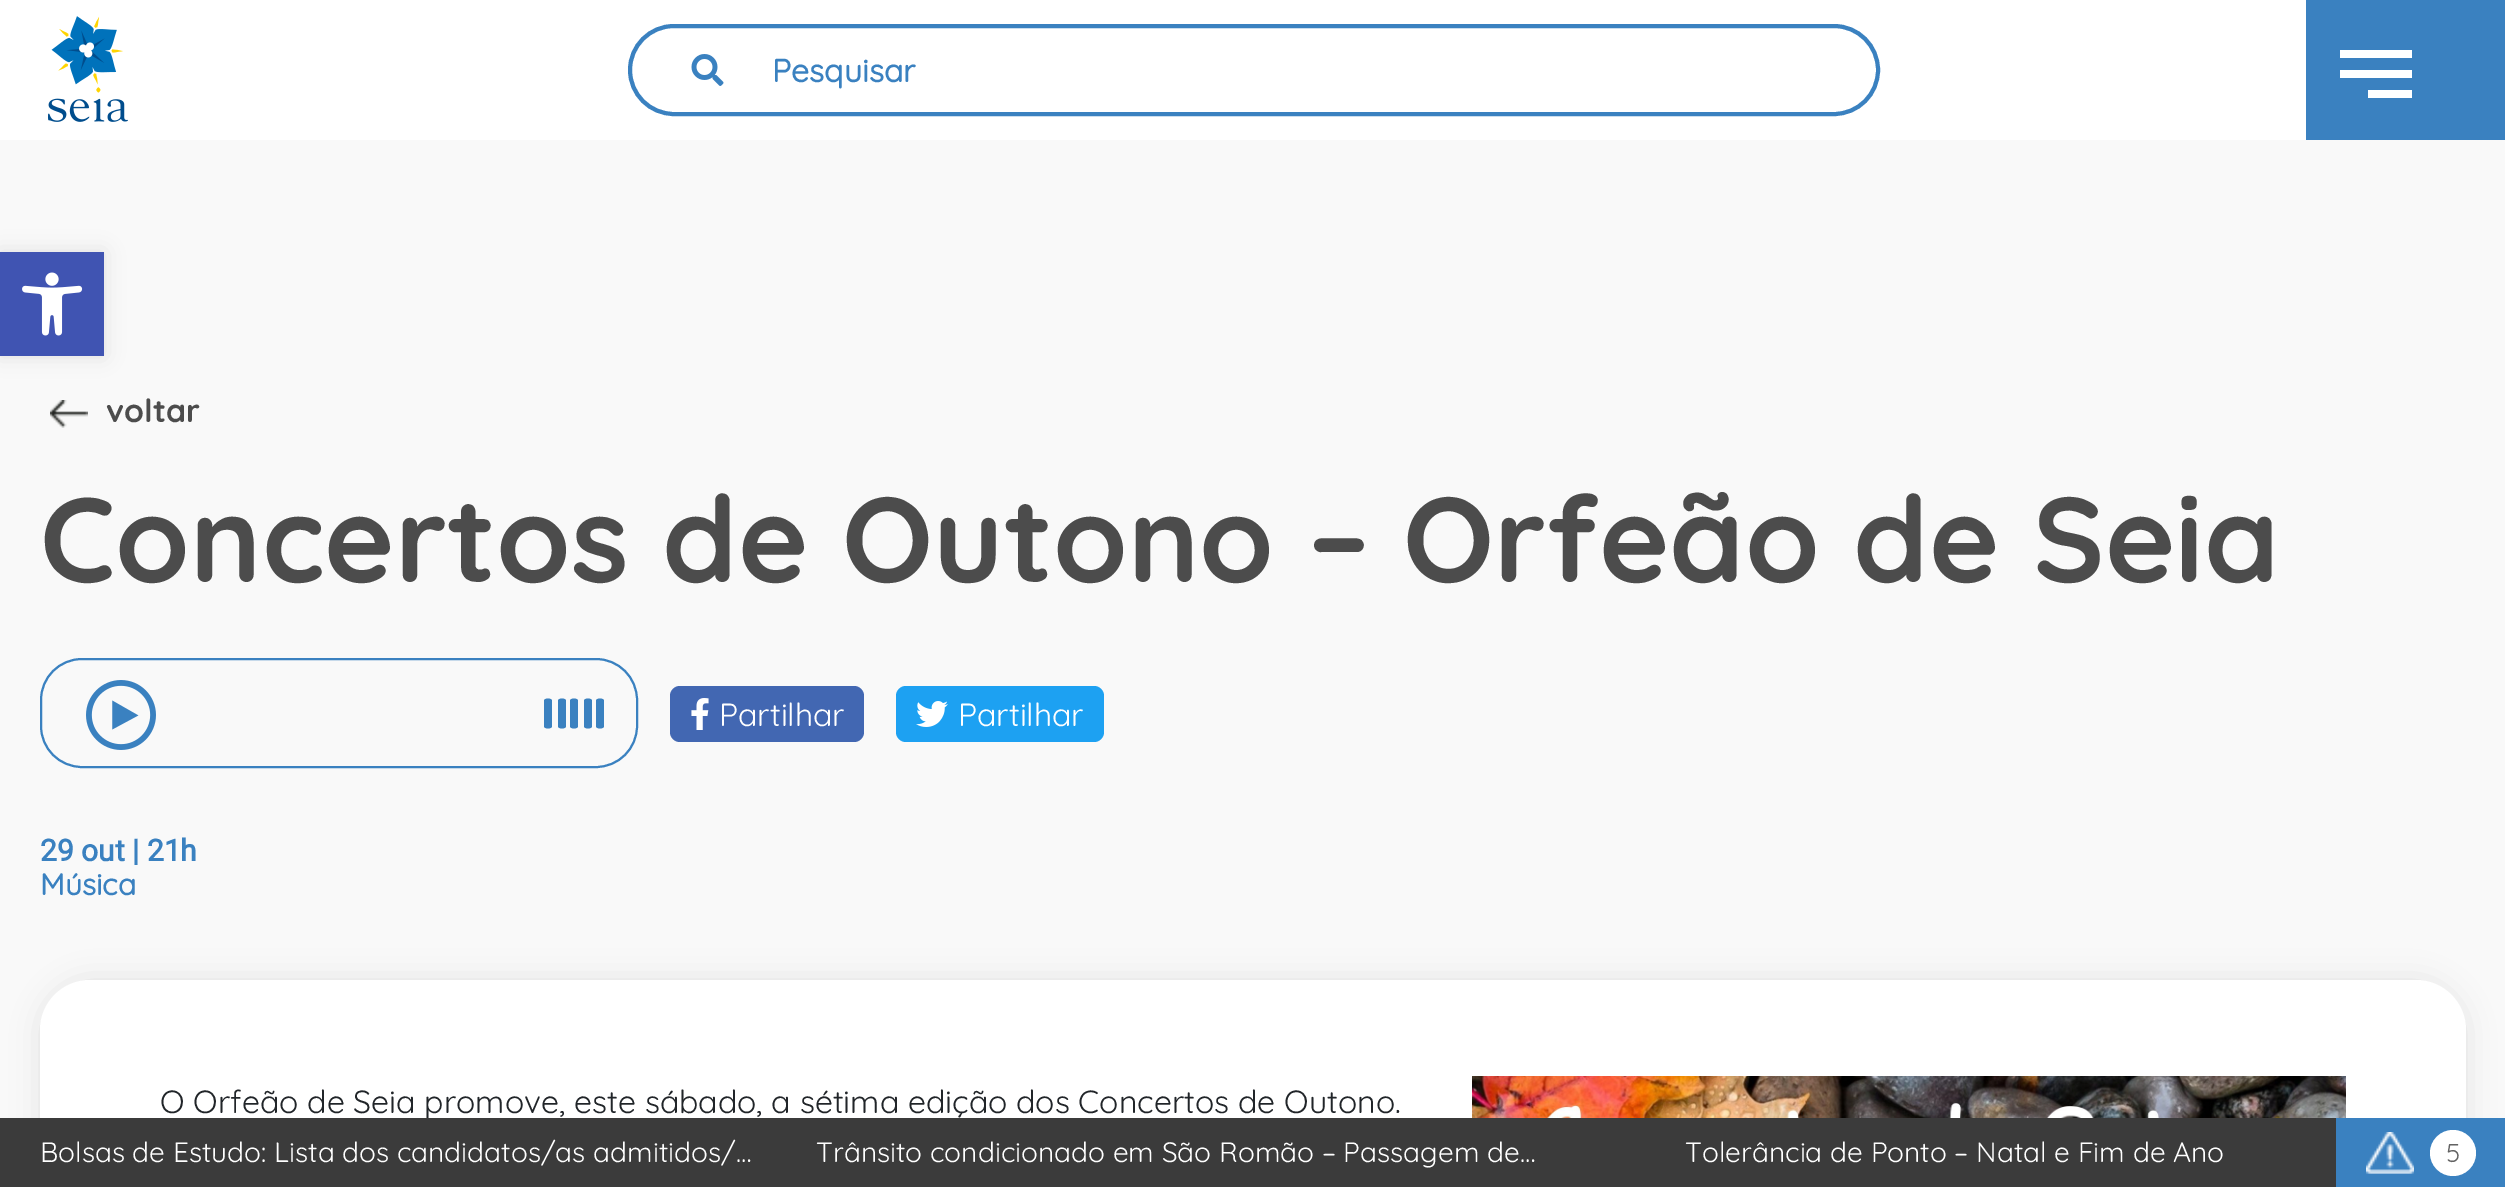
%!PS-Adobe-3.0
%%BoundingBox: 0 0 2505 1187
%%LanguageLevel: 3
%%Pages: 1
%%EndComments
%%BeginProlog
/setink { 3 { 255 div 3 1 roll } repeat setrgbcolor } def
/usefont { [ exch dup neg 0 0 3 -1 roll 0 0 ] selectfont } def
/drawtext { setink usefont moveto show } def
/fillbox { setink rectfill } def
/setalpha { dup .setfillconstantalpha .setstrokeconstantalpha } def
/disc { newpath 0 360 arc closepath } def
/rrect { 5 dict begin { /r /h /w /y /x } { exch def } forall
  x r add y moveto x w add y 2 copy h add r arct x w add y h add x 1 index r arct
  x y h add x y r arct x y 2 copy exch w add exch r arct closepath end } def
/softshadow { 12 dict begin { /a /b /q /h /w /y /x } { exch def } forall gsave /was 0 def
  9 -2 -9 { dup b mul 4 div /e exch def 1 sub .425 mul 2.718 exch exp 1 add a .99 .min exch div /now exch def
    1 1 now sub 1 was sub div sub setalpha /was now def
    w h .min e 2 mul add 0 gt { x e sub y e sub w e 2 mul add h e 2 mul add
      q e add b .6 mul add w h .min 2 div e add .min 0 .max rrect fill } if } for grestore end } def
/drawimage { 5 dict begin { /h /w /y /x /name } { exch def } forall
  gsave x y translate w h scale
  w h 8 [w 0 0 h 0 0] name (r) file false 3 colorimage grestore end } def
%%EndProlog
%%BeginSetup
<< /PageSize [2505 1187] /PageUsesTransparency true >> setpagedevice
%%EndSetup
%%Page: 1 1
0 .pushpdf14devicefilter
0 1187 translate 1 -1 scale
4 setmiterlimit
0 0 2505 1187 255 255 255 fillbox
(assets/img1.rgb) 48 16 80 106 drawimage
58 129 192 setink
4 setlinewidth
630 26 1248 88 44 rrect stroke
(assets/img2.rgb) 691 54 33 32 drawimage
(Pesquisar) 772 82 /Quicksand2-Bold 32 58 129 192 drawtext
2306 0 199 140 58 129 192 fillbox
2340 50 72 8 255 255 255 fillbox
2340 70 72 8 255 255 255 fillbox
2368 90 44 8 255 255 255 fillbox
0 140 2505 978 249 249 249 fillbox
0 0 0 setink
0 252 104 104 0 10 0.1 softshadow
0 252 104 104 64 84 178 fillbox
(assets/img3.rgb) 22 272 61 64 drawimage
(assets/img4.rgb) 50 400 38 28 drawimage
(voltar) 106 422 /Quicksand-Bold 32 76 76 76 drawtext
(Concertos de Outono – Orfeão de Seia) 40 582 /Quicksand-Bold 120 76 76 76 drawtext
58 129 192 setink
2 setlinewidth
41 659 596 108 41 rrect stroke
(assets/img5.rgb) 86 680 70 70 drawimage
548 698.5 moveto 550 698.5 552 699.5 552 700.5 curveto 552 726.5 lineto 552 727.5 550 728.5 548 728.5 curveto 546 728.5 544 727.5 544 726.5 curveto 544 700.5 lineto 544 699.5 546 698.5 548 698.5 curveto closepath 562 698.5 moveto 564 698.5 566 699.5 566 700.5 curveto 566 726.5 lineto 566 727.5 564 728.5 562 728.5 curveto 560 728.5 558 727.5 558 726.5 curveto 558 700.5 lineto 558 699.5 560 698.5 562 698.5 curveto closepath 574 698.5 moveto 576 698.5 578 699.5 578 700.5 curveto 578 726.5 lineto 578 727.5 576 728.5 574 728.5 curveto 572 728.5 570 727.5 570 726.5 curveto 570 700.5 lineto 570 699.5 572 698.5 574 698.5 curveto closepath 588 698.5 moveto 590 698.5 592 699.5 592 700.5 curveto 592 726.5 lineto 592 727.5 590 728.5 588 728.5 curveto 586 728.5 584 727.5 584 726.5 curveto 584 700.5 lineto 584 699.5 586 698.5 588 698.5 curveto closepath 600 698.5 moveto 602 698.5 604 699.5 604 700.5 curveto 604 726.5 lineto 604 727.5 602 728.5 600 728.5 curveto 598 728.5 596 727.5 596 726.5 curveto 596 700.5 lineto 596 699.5 598 698.5 600 698.5 curveto closepath fill
66 103 178 setink
670 686 194 56 10 rrect fill
(assets/img6.rgb) 691 698 18 32 drawimage
(Partilhar) 719 726 /Quicksand-Regular 32 255 255 255 drawtext
29 161 242 setink
896 686 208 56 10 rrect fill
(assets/img7.rgb) 916 701 32 26 drawimage
(Partilhar) 958 726 /Quicksand-Regular 32 255 255 255 drawtext
(29 out | 21h) 40 861 /Roboto-Bold 30 58 129 192 drawtext
(Música) 40 895 /Quicksand2-Bold 30 58 129 192 drawtext
219 219 219 setink
42 982 2422 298 48 15 1 softshadow
255 255 255 setink
40 980 2426 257 50 rrect fill
(O Orfeão de Seia promove, este sábado, a sétima edição dos Concertos de Outono.) 160 1113 /Quicksand-Regular 32 33 37 41 drawtext
(assets/img8.rgb) 1472 1076 874 42 drawimage
0 1118 2336 69 59 59 59 fillbox
(Bolsas de Estudo: Lista dos candidatos/as admitidos/…) 40 1162 /Quicksand-Regular 28 255 255 255 drawtext
(Trânsito condicionado em São Romão – Passagem de…) 816 1162 /Quicksand-Regular 28 255 255 255 drawtext
(Tolerância de Ponto – Natal e Fim de Ano) 1685 1162 /Quicksand-Regular 28 255 255 255 drawtext
2336 1118 169 69 58 129 192 fillbox
(assets/img9.rgb) 2366 1132 48 42 drawimage
255 255 255 setink
2453 1153 23 disc fill
(5) 2446 1162 /Quicksand-Regular 26 99 99 99 drawtext
.poppdf14devicefilter showpage
%%EOF
